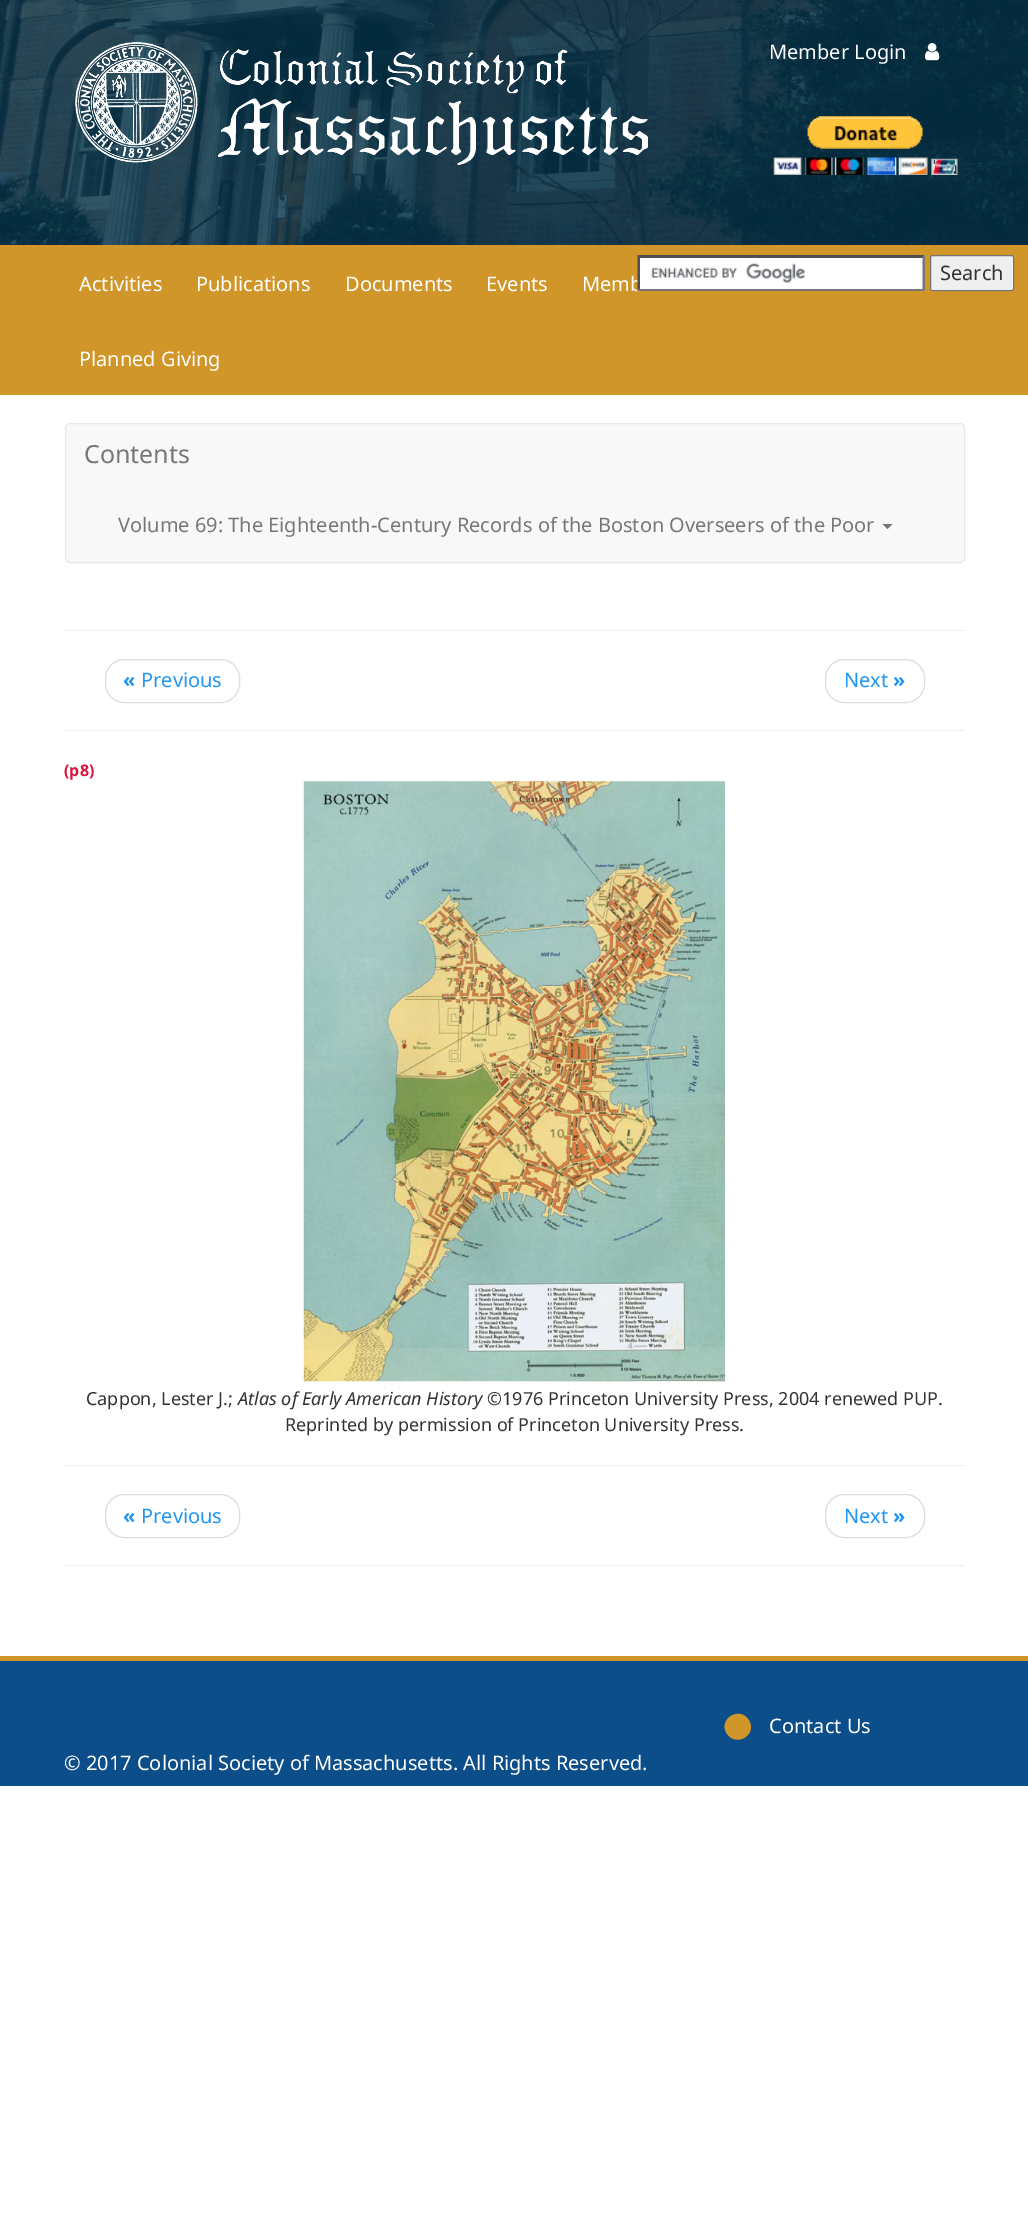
%!PS-Adobe-3.0
%%BoundingBox: 0 0 1028 2235
%%LanguageLevel: 3
%%Pages: 1
%%EndComments
%%BeginProlog
/setink { 3 { 255 div 3 1 roll } repeat setrgbcolor } def
/usefont { [ exch dup neg 0 0 3 -1 roll 0 0 ] selectfont } def
/drawtext { setink usefont moveto show } def
/fillbox { setink rectfill } def
/rrect { 5 dict begin { /r /h /w /y /x } { exch def } forall
  x r add y moveto x w add y 2 copy h add r arct x w add y h add x 1 index r arct
  x y h add x y r arct x y 2 copy exch w add exch r arct closepath end } def
/drawimage { 5 dict begin { /h /w /y /x /name } { exch def } forall
  gsave x y translate w h scale
  w h 8 [w 0 0 h 0 0] name (r) file false 3 colorimage grestore end } def
%%EndProlog
%%BeginSetup
<< /PageSize [1028 2235] >> setpagedevice
%%EndSetup
%%Page: 1 1
0 2235 translate 1 -1 scale
4 setmiterlimit
0 0 1028 2235 255 255 255 fillbox
(assets/img1.rgb) 0 0 1028 245 drawimage
(assets/img2.rgb) 75 42 573 123 drawimage
(Member Login) 769 59 /NotoSans-Regular 20 255 255 255 drawtext
(assets/img3.rgb) 925 43 15 18 drawimage
(assets/img4.rgb) 773 116 185 59 drawimage
0 245 1028 150 208 150 42 fillbox
638 255 287 36 255 255 255 fillbox
(assets/img5.rgb) 651 263 154 20 drawimage
79 79 79 setink
638 255 moveto 925 255 lineto 922 258 lineto 640 258 lineto closepath fill
118 118 118 setink
925 255 moveto 925 291 lineto 922.5 289 lineto 922.5 257.5 lineto closepath fill
(Memb) 582 291 /NotoSans-Regular 20 255 255 255 drawtext
118 118 118 setink
925 291 moveto 638 291 lineto 640 289 lineto 922 289 lineto closepath fill
79 79 79 setink
637.5 291 moveto 637.5 255 lineto 640 257.5 lineto 640 289 lineto closepath fill
239 239 239 setink
930.5 255.5 83 35 2 rrect gsave fill grestore
118 118 118 setink
stroke
(Search) 940 280 /NotoSans-Regular 20 51 51 51 drawtext
(Activities) 79 291 /NotoSans-Regular 20 255 255 255 drawtext
(Publications) 196 291 /NotoSans-Regular 20 255 255 255 drawtext
(Documents) 345 291 /NotoSans-Regular 20 255 255 255 drawtext
(Events) 486 291 /NotoSans-Regular 20 255 255 255 drawtext
(Planned Giving) 79 366 /NotoSans-Regular 20 255 255 255 drawtext
248 248 248 setink
65.5 423.5 899 139 4.5 rrect gsave fill grestore
231 231 231 setink
stroke
(Contents) 84 463 /NotoSans-Regular 25 119 119 119 drawtext
(Volume 69: The Eighteenth-Century Records of the Boston Overseers of the Poor) 118 532 /NotoSans-Regular 20 119 119 119 drawtext
882.5 524 moveto 892.5 524 lineto 887.5 529 lineto closepath fill
65 630 900 1 238 238 238 fillbox
221 221 221 setink
105.5 659.5 134 43 18.5 rrect stroke
(«) 123 687 /NotoSans-Bold 20 33 150 243 drawtext
(Previous) 141 687 /NotoSans-Regular 20 33 150 243 drawtext
221 221 221 setink
825.5 659.5 99 43 18.5 rrect stroke
(Next) 844 687 /NotoSans-Regular 20 33 150 243 drawtext
(») 893 687 /NotoSans-Bold 20 33 150 243 drawtext
65 730 900 1 238 238 238 fillbox
(\(p8\)) 64 776 /NotoSans-Bold 16 220 20 60 drawtext
(assets/img6.rgb) 303 781 422 601 drawimage
(Cappon, Lester J.;) 86 1405 /NotoSans-Regular 18 51 51 51 drawtext
(Atlas of Early American History) 238 1405 /NotoSans-Italic 18 51 51 51 drawtext
(©1976 Princeton University Press, 2004 renewed PUP.) 487 1405 /NotoSans-Regular 18 51 51 51 drawtext
(Reprinted by permission of Princeton University Press.) 285 1431 /NotoSans-Regular 18 51 51 51 drawtext
65 1465 900 1 238 238 238 fillbox
221 221 221 setink
105.5 1494.5 134 43 18.5 rrect stroke
(«) 123 1523 /NotoSans-Bold 20 33 150 243 drawtext
(Previous) 141 1523 /NotoSans-Regular 20 33 150 243 drawtext
221 221 221 setink
825.5 1494.5 99 43 18.5 rrect stroke
(Next) 844 1523 /NotoSans-Regular 20 33 150 243 drawtext
(») 893 1523 /NotoSans-Bold 20 33 150 243 drawtext
65 1565 900 1 238 238 238 fillbox
0 1661 1028 125 12 78 137 fillbox
0 1656 1028 5 208 150 42 fillbox
749 1720.5 moveto 757.5 1735 735.5 1748 726.5 1733 curveto 718 1718.5 740.5 1705.5 749 1720.5 curveto closepath fill
(Contact Us) 769 1733 /NotoSans-Regular 20 255 255 255 drawtext
(© 2017 Colonial Society of Massachusetts. All Rights Reserved.) 64 1770 /NotoSans-Regular 20 255 255 255 drawtext
showpage
%%EOF
